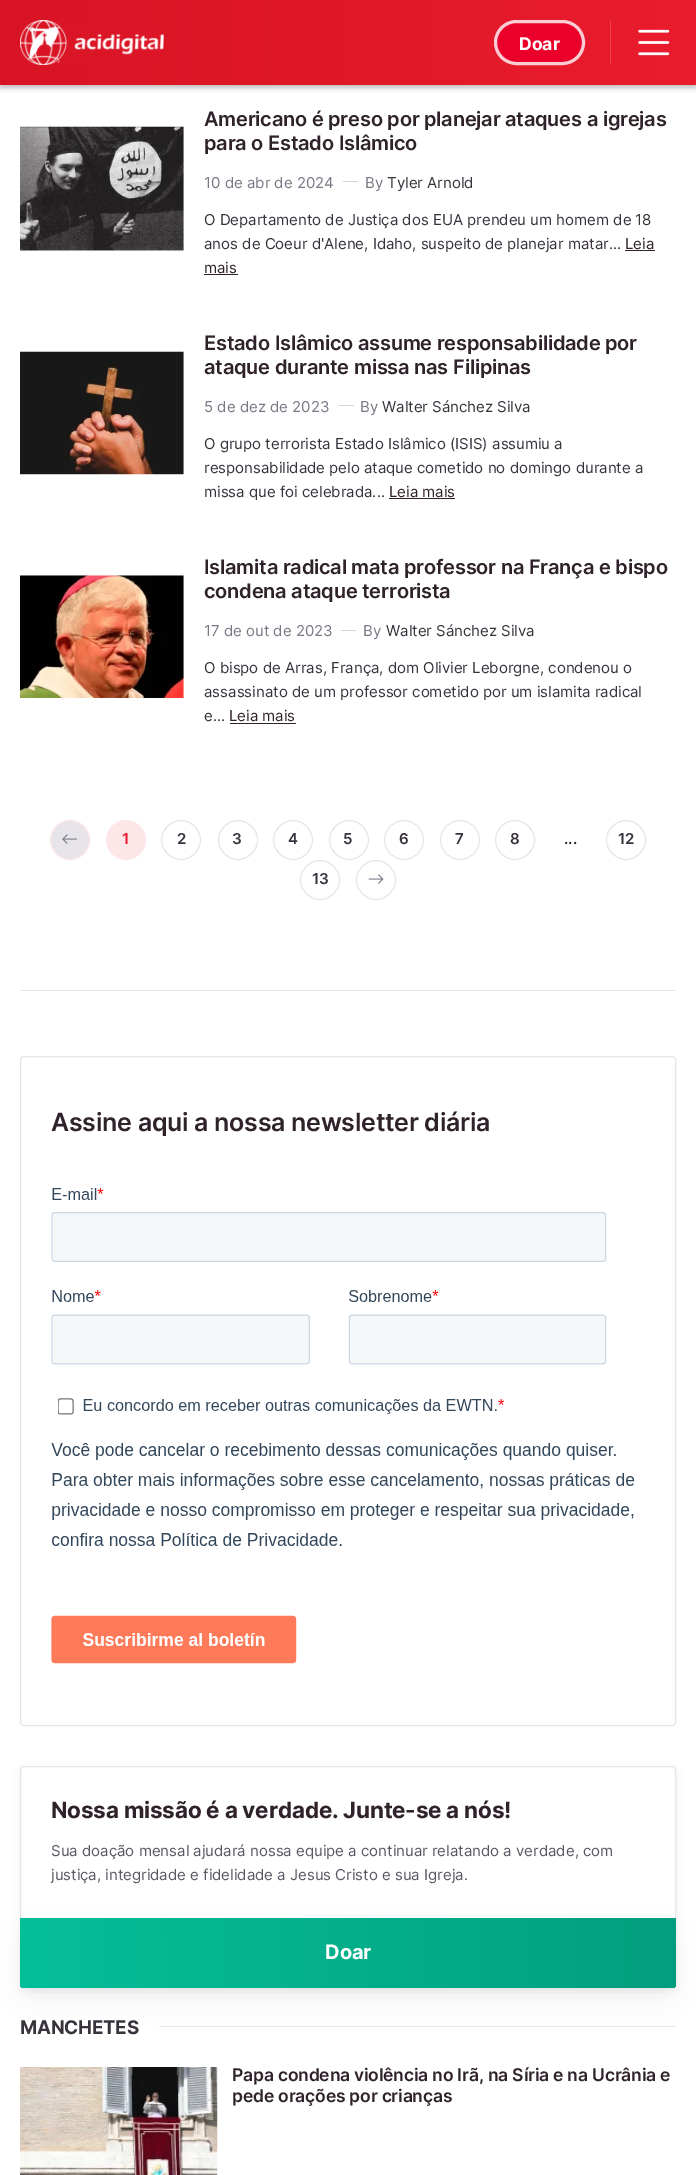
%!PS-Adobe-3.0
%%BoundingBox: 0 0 696 2175
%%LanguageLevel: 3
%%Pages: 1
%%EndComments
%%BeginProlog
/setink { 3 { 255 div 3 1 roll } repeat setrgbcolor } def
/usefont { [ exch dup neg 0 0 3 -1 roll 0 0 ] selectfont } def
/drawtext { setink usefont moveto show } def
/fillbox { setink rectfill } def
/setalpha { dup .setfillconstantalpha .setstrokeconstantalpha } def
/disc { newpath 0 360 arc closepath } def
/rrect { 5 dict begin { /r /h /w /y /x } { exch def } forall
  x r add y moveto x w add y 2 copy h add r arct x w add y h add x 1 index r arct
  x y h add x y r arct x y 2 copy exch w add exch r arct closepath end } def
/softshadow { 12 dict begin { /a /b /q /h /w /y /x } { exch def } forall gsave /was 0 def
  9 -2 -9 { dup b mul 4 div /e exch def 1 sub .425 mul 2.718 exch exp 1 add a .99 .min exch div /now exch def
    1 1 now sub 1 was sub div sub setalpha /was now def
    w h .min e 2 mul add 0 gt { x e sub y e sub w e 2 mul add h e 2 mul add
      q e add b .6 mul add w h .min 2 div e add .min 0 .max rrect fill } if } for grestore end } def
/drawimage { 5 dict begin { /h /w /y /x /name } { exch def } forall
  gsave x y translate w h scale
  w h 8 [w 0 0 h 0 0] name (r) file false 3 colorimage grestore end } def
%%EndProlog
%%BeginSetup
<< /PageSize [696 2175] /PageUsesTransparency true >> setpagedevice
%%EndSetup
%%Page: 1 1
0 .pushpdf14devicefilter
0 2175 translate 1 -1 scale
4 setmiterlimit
0 0 696 2175 255 255 255 fillbox
47 34 42 setink
0 3 696 85 0 2.5 0.3 softshadow
gsave 0 0 moveto 696 0 lineto 696 85 lineto 0 85 lineto closepath clip newpath
<< /ShadingType 2 /ColorSpace /DeviceRGB /Coords [696 42 0 43] /Extend [true true] /Function << /FunctionType 2 /Domain [0 1] /C0 [0.918 0.11 0.176] /C1 [0.847 0.078 0.141] /N 1 >> >> shfill grestore
(assets/img1.rgb) 20 20 144 45 drawimage
234 0 42 setink
494 20 91 45 22.5 rrect fill
0.8 setalpha
255 255 255 setink
3 setlinewidth
495.5 21.5 88 42 21 rrect stroke
1 setalpha
(Doar) 519 50 /Inter-Bold 17.5 255 255 255 drawtext
610 20 1 45 235 61 76 fillbox
(assets/img2.rgb) 638 29 32 27 drawimage
(assets/img3.rgb) 20 126 164 125 drawimage
/Inter-SemiBold 20 usefont
47 34 42 setink
204 126 moveto -0.2 0 (Americano é preso por planejar ataques a igrejas) ashow
204 150 moveto -0.2 0 (para o Estado Islâmico) ashow
(10 de abr de 2024) 204 188 /Inter-Regular 15 121 120 133 drawtext
343 181 15 1 213 211 215 fillbox
(By) 365 188 /Inter-Regular 15 121 120 133 drawtext
(Tyler Arnold) 387 188 /Inter-Regular 15 56 50 60 drawtext
(O Departamento de Justiça dos EUA prendeu um homem de 18) 204 225 /Inter-Regular 15 56 50 60 drawtext
(anos de Coeur d'Alene, Idaho, suspeito de planejar matar...) 204 249 /Inter-Regular 15 56 50 60 drawtext
(Leia) 625 249 /Inter-Regular 15 47 34 42 drawtext
625 250 30 1 47 34 42 fillbox
(mais) 204 273 /Inter-Regular 15 47 34 42 drawtext
204 274 34 1 47 34 42 fillbox
(assets/img4.rgb) 20 351 164 124 drawimage
/Inter-SemiBold 20 usefont
204 350 moveto -0.2 0 (Estado Islâmico assume responsabilidade por) ashow
204 374 moveto -0.2 0 (ataque durante missa nas Filipinas) ashow
(5 de dez de 2023) 204 412 /Inter-Regular 15 121 120 133 drawtext
339 405 15 1 213 211 215 fillbox
(By) 360 412 /Inter-Regular 15 121 120 133 drawtext
(Walter Sánchez Silva) 382 412 /Inter-Regular 15 56 50 60 drawtext
(O grupo terrorista Estado Islâmico \(ISIS\) assumiu a) 204 449 /Inter-Regular 15 56 50 60 drawtext
(responsabilidade pelo ataque cometido no domingo durante a) 204 473 /Inter-Regular 15 56 50 60 drawtext
(missa que foi celebrada...) 204 497 /Inter-Regular 15 56 50 60 drawtext
(Leia mais) 389 497 /Inter-Regular 15 47 34 42 drawtext
389 498 66 1 47 34 42 fillbox
(assets/img5.rgb) 20 575 164 123 drawimage
/Inter-SemiBold 20 usefont
204 574 moveto -0.2 0 (Islamita radical mata professor na França e bispo) ashow
204 598 moveto -0.2 0 (condena ataque terrorista) ashow
(17 de out de 2023) 204 636 /Inter-Regular 15 121 120 133 drawtext
341 630 15 1 213 211 215 fillbox
(By) 363 636 /Inter-Regular 15 121 120 133 drawtext
(Walter Sánchez Silva) 386 636 /Inter-Regular 15 56 50 60 drawtext
(O bispo de Arras, França, dom Olivier Leborgne, condenou o) 204 673 /Inter-Regular 15 56 50 60 drawtext
(assassinato de um professor cometido por um islamita radical) 204 697 /Inter-Regular 15 56 50 60 drawtext
(e...) 204 721 /Inter-Regular 15 56 50 60 drawtext
(Leia mais) 229 721 /Inter-Regular 15 47 34 42 drawtext
230 723 66 1 47 34 42 fillbox
231 229 233 setink
70 840 19.5 disc gsave fill grestore
253 230 232 setink
1 setlinewidth
stroke
(assets/img6.rgb) 62 834 15 10 drawimage
126 840 19.5 disc gsave fill grestore
stroke
(1) 122 844 /Inter-SemiBold 15 234 28 45 drawtext
231 229 233 setink
181 840 19.5 disc stroke
(2) 177 844 /Inter-SemiBold 15 56 50 60 drawtext
231 229 233 setink
238 840 19.5 disc stroke
(3) 232 844 /Inter-SemiBold 15 56 50 60 drawtext
231 229 233 setink
293 840 19.5 disc stroke
(4) 288 844 /Inter-SemiBold 15 56 50 60 drawtext
231 229 233 setink
349 840 19.5 disc stroke
(5) 343 844 /Inter-SemiBold 15 56 50 60 drawtext
231 229 233 setink
404 840 19.5 disc stroke
(6) 399 844 /Inter-SemiBold 15 56 50 60 drawtext
231 229 233 setink
460 840 19.5 disc stroke
(7) 455 844 /Inter-SemiBold 15 56 50 60 drawtext
231 229 233 setink
515 840 19.5 disc stroke
(8) 510 844 /Inter-SemiBold 15 56 50 60 drawtext
(...) 564 844 /Inter-SemiBold 15 47 34 42 drawtext
231 229 233 setink
626 840 19.5 disc stroke
(12) 618 844 /Inter-SemiBold 15 56 50 60 drawtext
231 229 233 setink
320 880 19.5 disc stroke
(13) 312 884 /Inter-SemiBold 15 56 50 60 drawtext
231 229 233 setink
376 880 19.5 disc stroke
(assets/img7.rgb) 368 874 16 10 drawimage
20 990 656 1 231 229 233 fillbox
20.5 1056.5 655 669 3.5 rrect stroke
/Inter-SemiBold 25 usefont
47 34 42 setink
51 1131 moveto -0.25 0 (Assine aqui a nossa newsletter diária) ashow
(assets/img8.rgb) 51 1188 584 476 drawimage
0 0 0 setink
20 1769 656 221 4 5 0.05 softshadow
255 255 255 setink
20.5 1766.5 655 221 3.5 rrect gsave fill grestore
231 229 233 setink
stroke
/Inter-Bold 22.5 usefont
47 34 42 setink
51 1818 moveto -0.2 0 (Nossa missão é a verdade. Junte-se a nós!) ashow
(Sua doação mensal ajudará nossa equipe a continuar relatando a verdade, com) 51 1856 /Inter-Regular 15 91 87 100 drawtext
(justiça, integridade e fidelidade a Jesus Cristo e sua Igreja.) 51 1880 /Inter-Regular 15 91 87 100 drawtext
0 0 0 setink
30 1940 636 50 0 15 0.1 softshadow
gsave 20 1918 moveto 676 1918 lineto 676 1984 lineto 676 1986 674 1988 672 1988 curveto 24 1988 lineto 22 1988 20 1986 20 1984 curveto closepath clip newpath
<< /ShadingType 2 /ColorSpace /DeviceRGB /Coords [20 1953 676 1953] /Extend [true true] /Function << /FunctionType 2 /Domain [0 1] /C0 [0.016 0.749 0.604] /C1 [0.012 0.62 0.498] /N 1 >> >> shfill grestore
(Doar) 325 1959 /Inter-Bold 20 255 255 255 drawtext
/Inter-Bold 18.75 usefont
56 50 60 setink
20 2034 moveto -0.25 0 (MANCHETES) ashow
159 2026 517 1 231 229 233 fillbox
(assets/img9.rgb) 20 2067 198 108 drawimage
/Inter-SemiBold 17.5 usefont
47 34 42 setink
232 2081 moveto -0.18 0 (Papa condena violência no Irã, na Síria e na Ucrânia e) ashow
232 2102 moveto -0.18 0 (pede orações por crianças) ashow
.poppdf14devicefilter showpage
%%EOF
